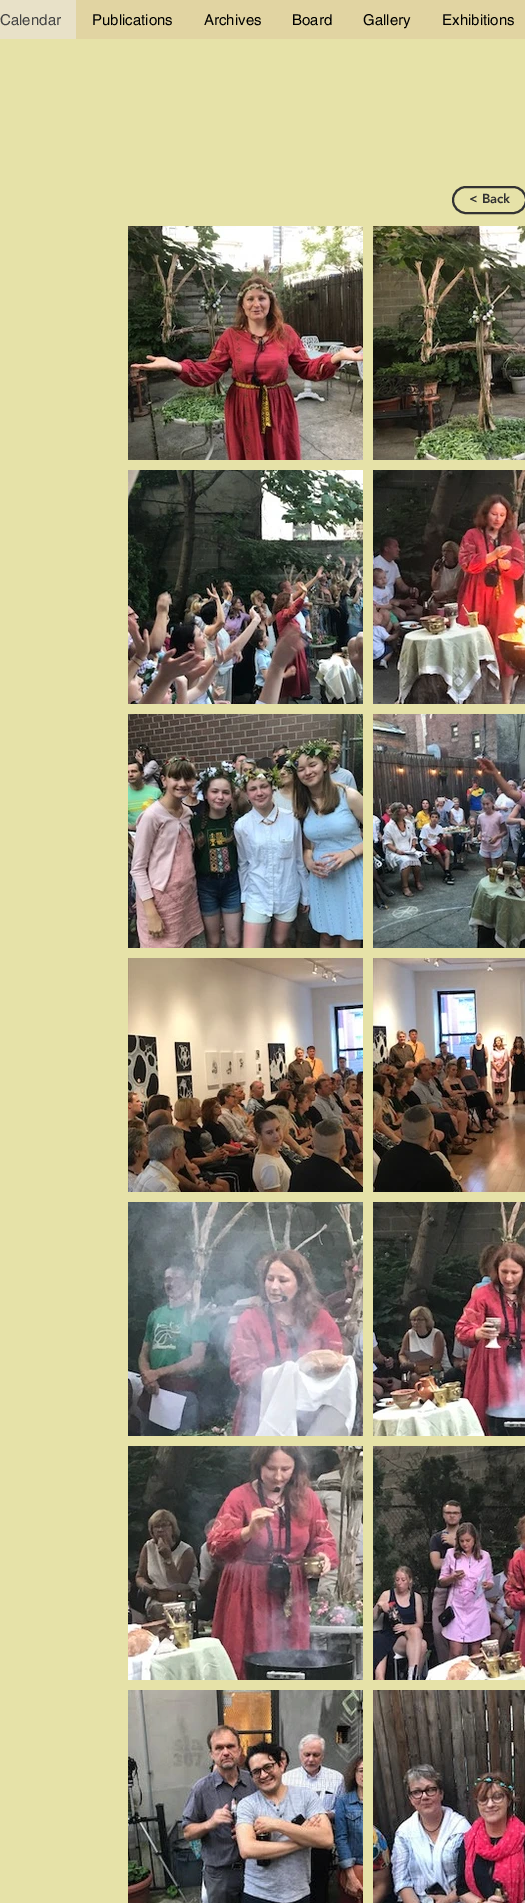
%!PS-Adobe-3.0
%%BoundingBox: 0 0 525 1903
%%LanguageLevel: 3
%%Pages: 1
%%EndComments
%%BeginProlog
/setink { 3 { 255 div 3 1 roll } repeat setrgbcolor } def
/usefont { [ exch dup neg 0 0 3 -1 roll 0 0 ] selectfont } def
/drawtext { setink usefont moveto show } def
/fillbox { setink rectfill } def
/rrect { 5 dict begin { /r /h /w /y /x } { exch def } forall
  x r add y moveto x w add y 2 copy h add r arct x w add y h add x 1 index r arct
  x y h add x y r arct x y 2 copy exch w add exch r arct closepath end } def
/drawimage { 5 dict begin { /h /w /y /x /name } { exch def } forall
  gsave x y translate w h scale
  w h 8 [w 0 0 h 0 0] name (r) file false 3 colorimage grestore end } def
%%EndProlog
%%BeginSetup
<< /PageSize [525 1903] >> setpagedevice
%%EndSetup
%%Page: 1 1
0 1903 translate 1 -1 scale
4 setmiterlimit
0 0 525 1903 230 226 168 fillbox
76 0 449 39 225 212 162 fillbox
0 0 76 39 232 225 200 fillbox
(Calendar) 0 25 /helvetica-Regular 15 68 68 68 drawtext
(Publications) 92 25 /helvetica-Regular 15 0 0 0 drawtext
(Archives) 204 25 /helvetica-Regular 15 0 0 0 drawtext
(Board) 292 25 /helvetica-Regular 15 0 0 0 drawtext
(Gallery) 363 25 /helvetica-Regular 15 0 0 0 drawtext
(Exhibitions) 442 25 /helvetica-Regular 15 0 0 0 drawtext
50 50 50 setink
2 setlinewidth
453 187 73 26 13 rrect stroke
(< Back) 469 203 /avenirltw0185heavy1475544-Black 13 50 50 50 drawtext
(assets/img1.rgb) 128 226 235 234 drawimage
(assets/img2.rgb) 373 226 152 234 drawimage
(assets/img3.rgb) 128 470 235 234 drawimage
(assets/img4.rgb) 373 470 152 234 drawimage
(assets/img5.rgb) 128 714 235 234 drawimage
(assets/img6.rgb) 373 714 152 234 drawimage
(assets/img7.rgb) 128 958 235 234 drawimage
(assets/img8.rgb) 373 958 152 234 drawimage
(assets/img9.rgb) 128 1202 235 234 drawimage
(assets/img10.rgb) 373 1202 152 234 drawimage
(assets/img11.rgb) 128 1446 235 234 drawimage
(assets/img12.rgb) 373 1446 152 234 drawimage
(assets/img13.rgb) 128 1690 235 213 drawimage
(assets/img14.rgb) 373 1690 152 213 drawimage
showpage
%%EOF
